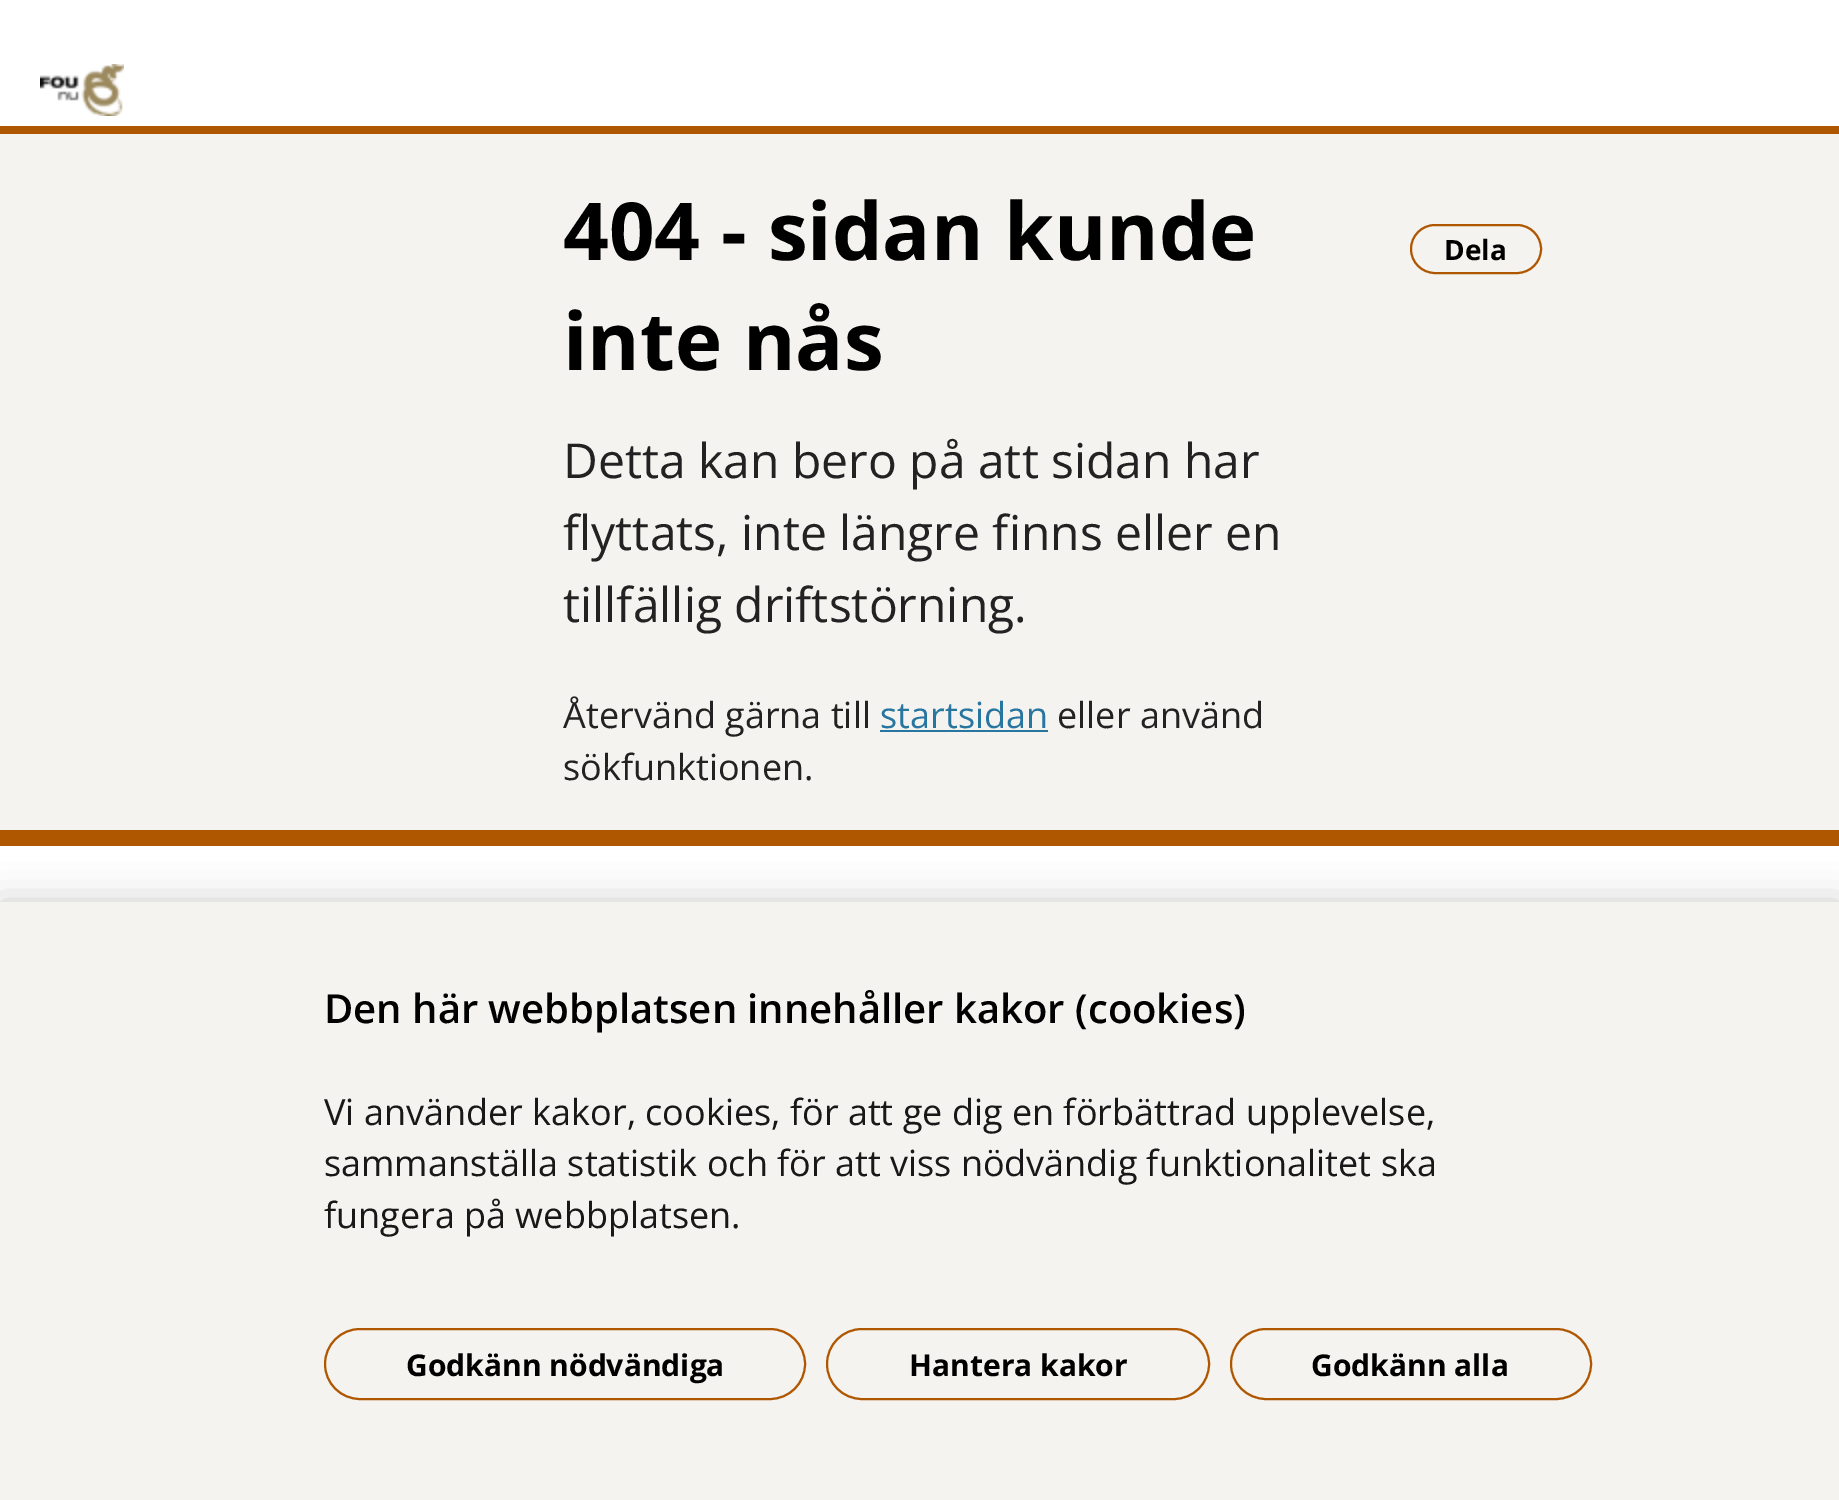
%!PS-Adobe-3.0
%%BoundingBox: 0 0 1839 1500
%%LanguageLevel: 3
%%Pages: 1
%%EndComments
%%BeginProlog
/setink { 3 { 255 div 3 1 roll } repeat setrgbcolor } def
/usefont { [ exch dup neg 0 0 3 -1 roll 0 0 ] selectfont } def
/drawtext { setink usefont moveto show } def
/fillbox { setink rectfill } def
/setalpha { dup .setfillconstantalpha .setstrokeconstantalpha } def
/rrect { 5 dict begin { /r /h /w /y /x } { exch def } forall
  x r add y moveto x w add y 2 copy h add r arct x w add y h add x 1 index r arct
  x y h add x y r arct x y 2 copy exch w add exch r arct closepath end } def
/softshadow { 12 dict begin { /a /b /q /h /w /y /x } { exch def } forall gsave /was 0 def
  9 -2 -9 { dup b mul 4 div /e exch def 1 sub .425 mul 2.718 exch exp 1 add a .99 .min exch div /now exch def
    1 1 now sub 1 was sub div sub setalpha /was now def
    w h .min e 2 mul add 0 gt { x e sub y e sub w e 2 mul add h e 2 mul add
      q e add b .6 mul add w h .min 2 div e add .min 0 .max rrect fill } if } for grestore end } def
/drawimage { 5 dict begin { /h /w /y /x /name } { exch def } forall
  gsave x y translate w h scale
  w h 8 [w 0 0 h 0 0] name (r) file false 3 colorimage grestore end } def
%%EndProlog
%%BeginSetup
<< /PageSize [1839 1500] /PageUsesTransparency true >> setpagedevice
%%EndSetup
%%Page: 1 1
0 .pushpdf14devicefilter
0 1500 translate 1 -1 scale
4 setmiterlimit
0 0 1839 1500 255 255 255 fillbox
0 134 1839 696 245 243 240 fillbox
0 126 1839 8 175 87 0 fillbox
(assets/img1.rgb) 40 64 84 52 drawimage
(404 - sidan kunde) 563 260 /OpenSans-Bold 80 0 0 0 drawtext
(inte nås) 563 370 /OpenSans-Bold 80 0 0 0 drawtext
(Detta kan bero på att sidan har) 563 478 /OpenSans-Regular 48 34 34 34 drawtext
(flyttats, inte längre finns eller en) 563 550 /OpenSans-Regular 48 34 34 34 drawtext
(tillfällig driftstörning.) 563 622 /OpenSans-Regular 48 34 34 34 drawtext
(Återvänd gärna till) 563 728 /OpenSans-Regular 36 34 34 34 drawtext
(startsidan) 880 728 /OpenSans-Regular 36 39 118 159 drawtext
880 730 168 2 39 118 159 fillbox
(eller använd) 1057 728 /OpenSans-Regular 36 34 34 34 drawtext
(sökfunktionen.) 563 780 /OpenSans-Regular 36 34 34 34 drawtext
175 87 0 setink
2 setlinewidth
1411 225 130 48 24 rrect stroke
(Dela) 1444 260 /OpenSans-Bold 28 0 0 0 drawtext
0 830 1839 16 175 87 0 fillbox
0 0 0 setink
0 902 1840 598 0 18 0.2 softshadow
0 902 1839 598 245 243 240 fillbox
(Den här webbplatsen innehåller kakor \(cookies\)) 324 1023 /OpenSans-SemiBold 40 0 0 0 drawtext
(Vi använder kakor, cookies, för att ge dig en förbättrad upplevelse,) 324 1125 /OpenSans-Regular 36 24 24 24 drawtext
(sammanställa statistik och för att viss nödvändig funktionalitet ska) 324 1176 /OpenSans-Regular 36 24 24 24 drawtext
(fungera på webbplatsen.) 324 1228 /OpenSans-Regular 36 24 24 24 drawtext
175 87 0 setink
325 1329 480 70 35 rrect stroke
(Godkänn nödvändiga) 406 1376 /OpenSans-Bold 30 0 0 0 drawtext
175 87 0 setink
827 1329 382 70 35 rrect stroke
(Hantera kakor) 909 1376 /OpenSans-Bold 30 0 0 0 drawtext
175 87 0 setink
1231 1329 360 70 35 rrect stroke
(Godkänn alla) 1311 1376 /OpenSans-Bold 30 0 0 0 drawtext
.poppdf14devicefilter showpage
%%EOF
